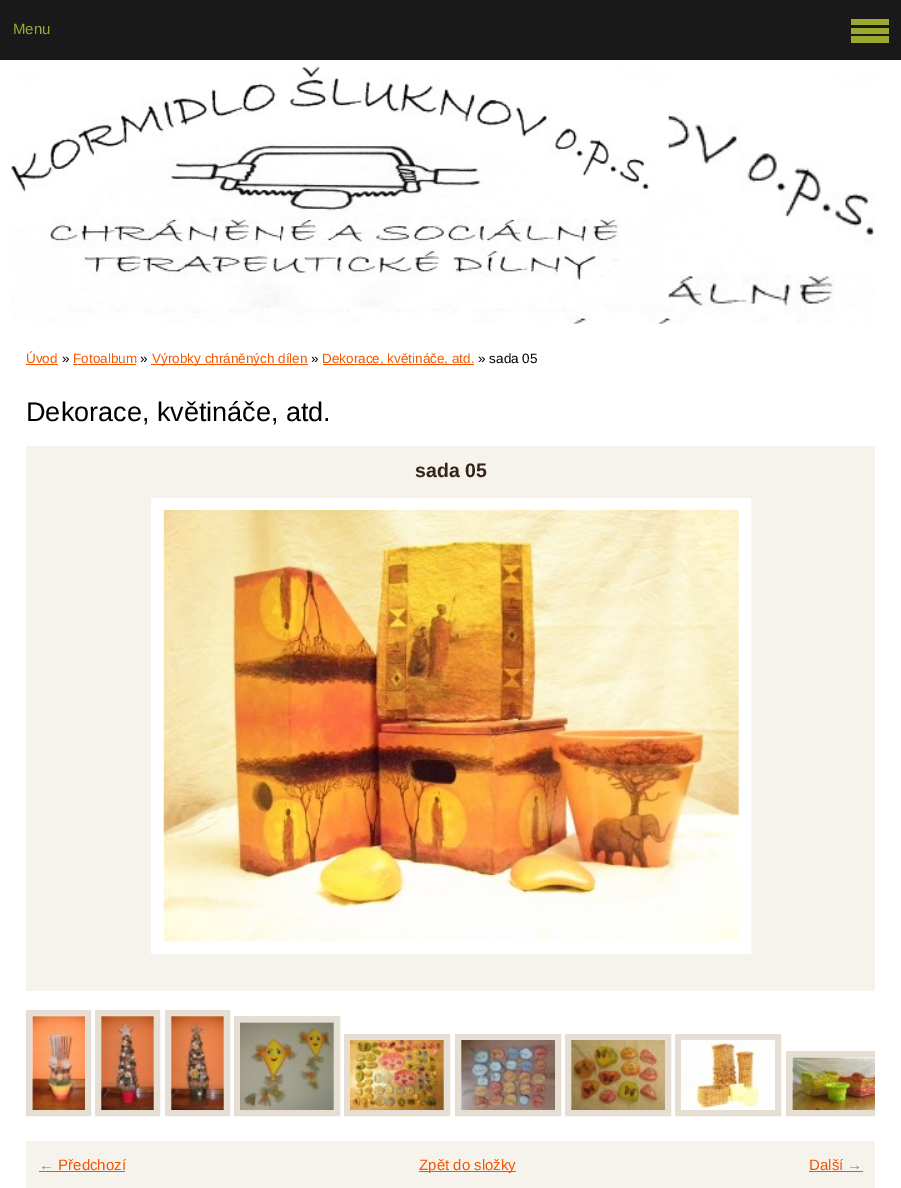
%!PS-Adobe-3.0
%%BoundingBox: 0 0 901 1188
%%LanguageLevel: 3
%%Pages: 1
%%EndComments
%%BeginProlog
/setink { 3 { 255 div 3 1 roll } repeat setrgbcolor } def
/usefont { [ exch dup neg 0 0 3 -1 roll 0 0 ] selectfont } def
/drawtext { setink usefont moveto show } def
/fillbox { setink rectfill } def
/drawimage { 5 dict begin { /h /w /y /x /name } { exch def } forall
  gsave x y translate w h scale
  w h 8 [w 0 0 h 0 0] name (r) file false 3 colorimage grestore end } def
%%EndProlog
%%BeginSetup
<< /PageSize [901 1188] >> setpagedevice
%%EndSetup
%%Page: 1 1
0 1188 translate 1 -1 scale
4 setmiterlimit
0 0 901 1188 255 255 255 fillbox
0 0 901 60 25 25 25 fillbox
(Menu) 13 34 /LiberationSans-Regular 15 155 168 50 drawtext
(Úvod) 26 363 /LiberationSans-Regular 13.5 243 85 0 drawtext
26 364 32 1 243 85 0 fillbox
(») 62 363 /LiberationSans-Regular 13.5 0 0 0 drawtext
(Fotoalbum) 73 363 /LiberationSans-Regular 13.5 243 85 0 drawtext
73 364 63 1 243 85 0 fillbox
(») 140 363 /LiberationSans-Regular 13.5 0 0 0 drawtext
151 364 157 1 243 85 0 fillbox
(Výrobky chráněných dílen) 152 363 /LiberationSans-Regular 13.5 243 85 0 drawtext
(») 311 363 /LiberationSans-Regular 13.5 0 0 0 drawtext
323 364 151 1 243 85 0 fillbox
(Dekorace, květináče, atd.) 322 363 /LiberationSans-Regular 13.5 243 85 0 drawtext
(» sada 05) 478 363 /LiberationSans-Regular 13.5 0 0 0 drawtext
(Dekorace, květináče, atd.) 26 421 /LiberationSans-Regular 27 0 0 0 drawtext
26 446 849 545 246 242 236 fillbox
(sada 05) 415 477 /LiberationSans-Bold 19.5 51 37 27 drawtext
255 255 255 setink
13 setlinewidth
157.5 504.5 587 443 rectstroke
(assets/img1.rgb) 163 510 576 432 drawimage
231 222 211 setink
6 setlinewidth
29 1013 59 100 rectstroke
98 1013 59 100 rectstroke
168 1013 59 100 rectstroke
(assets/img2.rgb) 32 1016 53 94 drawimage
(assets/img3.rgb) 101 1016 53 94 drawimage
(assets/img4.rgb) 171 1016 53 94 drawimage
237 1019 100 94 rectstroke
(assets/img5.rgb) 240 1022 94 88 drawimage
347 1037 100 76 rectstroke
458 1037 100 76 rectstroke
568 1037 100 76 rectstroke
678 1037 100 76 rectstroke
(assets/img6.rgb) 350 1040 94 70 drawimage
(assets/img7.rgb) 461 1040 94 70 drawimage
(assets/img8.rgb) 571 1040 94 70 drawimage
(assets/img9.rgb) 681 1040 94 70 drawimage
gsave
26 1010 849 113 rectclip
789 1054 101 59 rectstroke
grestore
(assets/img10.rgb) 792 1057 83 53 drawimage
26 1141 849 47 246 242 236 fillbox
(← Předchozí) 39 1170 /LiberationSans-Regular 15 243 85 0 drawtext
39 1171 86 1 243 85 0 fillbox
419 1171 97 1 243 85 0 fillbox
(Zpět do složky) 419 1170 /LiberationSans-Regular 15 243 85 0 drawtext
(Další →) 809 1170 /LiberationSans-Regular 15 243 85 0 drawtext
809 1171 54 1 243 85 0 fillbox
851 19 38 6 155 168 45 fillbox
851 28 38 6 155 168 45 fillbox
851 36 38 7 155 168 45 fillbox
(assets/img11.rgb) 13 69 862 255 drawimage
(assets/img12.rgb) 10 66 659 242 drawimage
showpage
%%EOF
